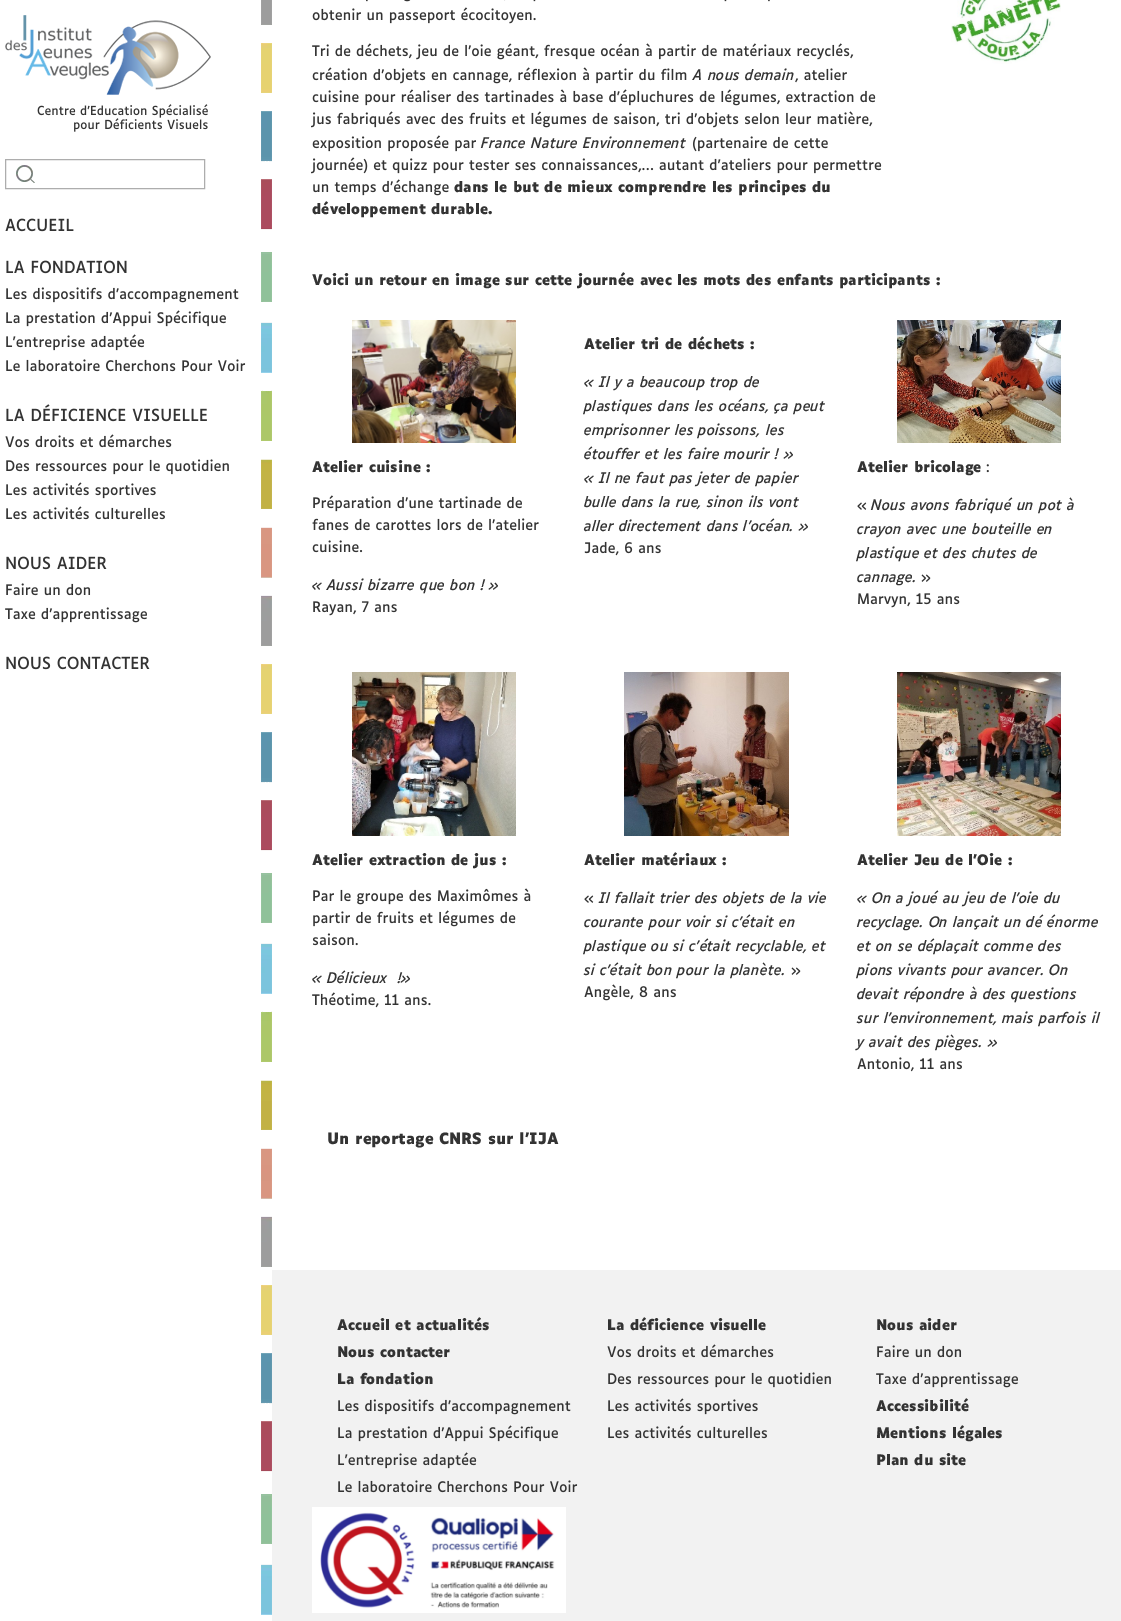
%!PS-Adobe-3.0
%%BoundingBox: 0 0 1121 1621
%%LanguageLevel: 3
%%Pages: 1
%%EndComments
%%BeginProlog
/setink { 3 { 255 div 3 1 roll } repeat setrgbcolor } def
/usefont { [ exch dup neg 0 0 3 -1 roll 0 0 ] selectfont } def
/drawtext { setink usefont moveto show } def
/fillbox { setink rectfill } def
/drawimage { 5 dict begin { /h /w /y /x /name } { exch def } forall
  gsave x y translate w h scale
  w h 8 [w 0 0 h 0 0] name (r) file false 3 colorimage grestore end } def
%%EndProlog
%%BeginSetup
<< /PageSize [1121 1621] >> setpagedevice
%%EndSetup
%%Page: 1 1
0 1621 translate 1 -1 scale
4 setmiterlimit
0 0 1121 1621 255 255 255 fillbox
(assets/img1.rgb) 261 0 11 1615 drawimage
(assets/img2.rgb) 5 15 206 80 drawimage
(assets/img3.rgb) 37 104 171 14 drawimage
(assets/img4.rgb) 74 118 134 14 drawimage
(assets/img5.rgb) 16 165 19 18 drawimage
173 173 173 setink
5.5 159.5 199 29 rectstroke
(assets/img6.rgb) 5 218 69 14 drawimage
(assets/img7.rgb) 6 260 121 14 drawimage
(assets/img8.rgb) 6 287 233 16 drawimage
(assets/img9.rgb) 6 310 220 17 drawimage
(assets/img10.rgb) 6 334 139 17 drawimage
(assets/img11.rgb) 6 359 240 13 drawimage
(assets/img12.rgb) 6 404 201 18 drawimage
(assets/img13.rgb) 5 434 167 14 drawimage
(assets/img14.rgb) 6 459 223 16 drawimage
(assets/img15.rgb) 6 482 150 17 drawimage
(assets/img16.rgb) 6 506 159 14 drawimage
(assets/img17.rgb) 6 556 101 14 drawimage
(assets/img18.rgb) 6 583 85 13 drawimage
(assets/img19.rgb) 5 607 142 16 drawimage
(assets/img20.rgb) 6 656 144 14 drawimage
(assets/img21.rgb) 951 0 110 64 drawimage
(assets/img22.rgb) 366 0 404 2 drawimage
(assets/img23.rgb) 312 7 224 17 drawimage
(assets/img24.rgb) 312 43 542 17 drawimage
(assets/img25.rgb) 312 67 375 17 drawimage
(A nous demain) 693 80 /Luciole-Italic 14 51 51 51 drawtext
(assets/img26.rgb) 795 68 52 15 drawimage
(assets/img27.rgb) 312 89 564 17 drawimage
(assets/img28.rgb) 311 111 562 17 drawimage
(assets/img29.rgb) 312 135 164 17 drawimage
(France Nature Environnement) 481 148 /Luciole-Italic 14 51 51 51 drawtext
(assets/img30.rgb) 693 136 135 16 drawimage
(assets/img31.rgb) 311 157 571 17 drawimage
(assets/img32.rgb) 313 179 136 17 drawimage
(dans le but de mieux comprendre les principes du) 454 192 /Luciole-Bold 14 51 51 51 drawtext
(développement durable.) 312 214 /Luciole-Bold 14 51 51 51 drawtext
(Voici un retour en image sur cette journée avec les mots des enfants participants :) 312 285 /Luciole-Bold 14 51 51 51 drawtext
(assets/img33.rgb) 352 320 164 123 drawimage
(Atelier cuisine :) 312 472 /Luciole-Bold 14 51 51 51 drawtext
(assets/img34.rgb) 313 495 209 17 drawimage
(assets/img35.rgb) 312 518 227 13 drawimage
(assets/img36.rgb) 312 540 51 13 drawimage
(« Aussi bizarre que bon ! ») 312 590 /Luciole-Italic 14 51 51 51 drawtext
(assets/img37.rgb) 313 601 84 15 drawimage
(Atelier tri de déchets :) 584 349 /Luciole-Bold 14 51 51 51 drawtext
(« Il y a beaucoup trop de) 584 387 /Luciole-Italic 14 51 51 51 drawtext
(plastiques dans les océans, ça peut) 584 411 /Luciole-Italic 14 51 51 51 drawtext
(emprisonner les poissons, les) 584 435 /Luciole-Italic 14 51 51 51 drawtext
(étouffer et les faire mourir ! ») 584 459 /Luciole-Italic 14 51 51 51 drawtext
(« Il ne faut pas jeter de papier) 584 483 /Luciole-Italic 14 51 51 51 drawtext
(bulle dans la rue, sinon ils vont) 584 507 /Luciole-Italic 14 51 51 51 drawtext
(aller directement dans l’océan. ») 584 531 /Luciole-Italic 14 51 51 51 drawtext
(assets/img38.rgb) 584 541 77 15 drawimage
(assets/img39.rgb) 897 320 164 123 drawimage
(Atelier bricolage) 857 472 /Luciole-Bold 14 51 51 51 drawtext
(assets/img40.rgb) 986 464 3 9 drawimage
(assets/img41.rgb) 857 502 10 8 drawimage
(Nous avons fabriqué un pot à) 871 510 /Luciole-Italic 14 51 51 51 drawtext
(crayon avec une bouteille en) 857 534 /Luciole-Italic 14 51 51 51 drawtext
(plastique et des chutes de) 857 558 /Luciole-Italic 14 51 51 51 drawtext
(cannage.) 857 582 /Luciole-Italic 14 51 51 51 drawtext
(assets/img42.rgb) 921 574 10 8 drawimage
(assets/img43.rgb) 858 593 102 15 drawimage
(assets/img44.rgb) 352 672 164 164 drawimage
(Atelier extraction de jus :) 312 865 /Luciole-Bold 14 51 51 51 drawtext
(assets/img45.rgb) 313 888 218 17 drawimage
(assets/img46.rgb) 313 910 203 17 drawimage
(assets/img47.rgb) 312 933 46 13 drawimage
(« Délicieux  !») 312 983 /Luciole-Italic 14 51 51 51 drawtext
(assets/img48.rgb) 312 992 119 16 drawimage
(assets/img49.rgb) 624 672 165 164 drawimage
(Atelier matériaux :) 584 865 /Luciole-Bold 14 51 51 51 drawtext
(assets/img41.rgb) 584 895 10 8 drawimage
(Il fallait trier des objets de la vie) 599 903 /Luciole-Italic 14 51 51 51 drawtext
(courante pour voir si c’était en) 584 927 /Luciole-Italic 14 51 51 51 drawtext
(plastique ou si c’était recyclable, et) 584 951 /Luciole-Italic 14 51 51 51 drawtext
(si c’était bon pour la planète.) 584 975 /Luciole-Italic 14 51 51 51 drawtext
(assets/img42.rgb) 791 967 10 8 drawimage
(assets/img50.rgb) 584 984 92 17 drawimage
(assets/img51.rgb) 897 672 164 164 drawimage
(Atelier Jeu de l’Oie :) 857 865 /Luciole-Bold 14 51 51 51 drawtext
(« On a joué au jeu de l’oie du) 857 903 /Luciole-Italic 14 51 51 51 drawtext
(recyclage. On lançait un dé énorme) 857 927 /Luciole-Italic 14 51 51 51 drawtext
(et on se déplaçait comme des) 857 951 /Luciole-Italic 14 51 51 51 drawtext
(pions vivants pour avancer. On) 857 975 /Luciole-Italic 14 51 51 51 drawtext
(devait répondre à des questions) 857 999 /Luciole-Italic 14 51 51 51 drawtext
(sur l’environnement, mais parfois il) 857 1023 /Luciole-Italic 14 51 51 51 drawtext
(y avait des pièges. ») 857 1047 /Luciole-Italic 14 51 51 51 drawtext
(assets/img52.rgb) 857 1057 105 15 drawimage
(Un reportage CNRS sur l’IJA) 327 1144 /Luciole-Bold 15 51 51 51 drawtext
272 1270 849 351 242 242 242 fillbox
(Accueil et actualités) 337 1330 /Luciole-Bold 14 51 51 51 drawtext
(Nous contacter) 337 1357 /Luciole-Bold 14 51 51 51 drawtext
(La fondation) 337 1384 /Luciole-Bold 14 51 51 51 drawtext
(assets/img53.rgb) 338 1399 233 16 drawimage
(assets/img54.rgb) 338 1425 220 17 drawimage
(assets/img55.rgb) 338 1452 139 17 drawimage
(assets/img56.rgb) 338 1480 240 13 drawimage
(La déficience visuelle) 607 1330 /Luciole-Bold 14 51 51 51 drawtext
(assets/img57.rgb) 607 1344 167 14 drawimage
(assets/img58.rgb) 608 1372 223 16 drawimage
(assets/img59.rgb) 608 1398 150 17 drawimage
(assets/img60.rgb) 608 1425 159 14 drawimage
(Nous aider) 876 1330 /Luciole-Bold 14 51 51 51 drawtext
(assets/img61.rgb) 877 1345 85 13 drawimage
(assets/img62.rgb) 876 1372 142 16 drawimage
(Accessibilité) 876 1411 /Luciole-Bold 14 51 51 51 drawtext
(Mentions légales) 876 1438 /Luciole-Bold 14 51 51 51 drawtext
(Plan du site) 876 1465 /Luciole-Bold 14 51 51 51 drawtext
(assets/img63.rgb) 312 1507 254 106 drawimage
showpage
%%EOF
